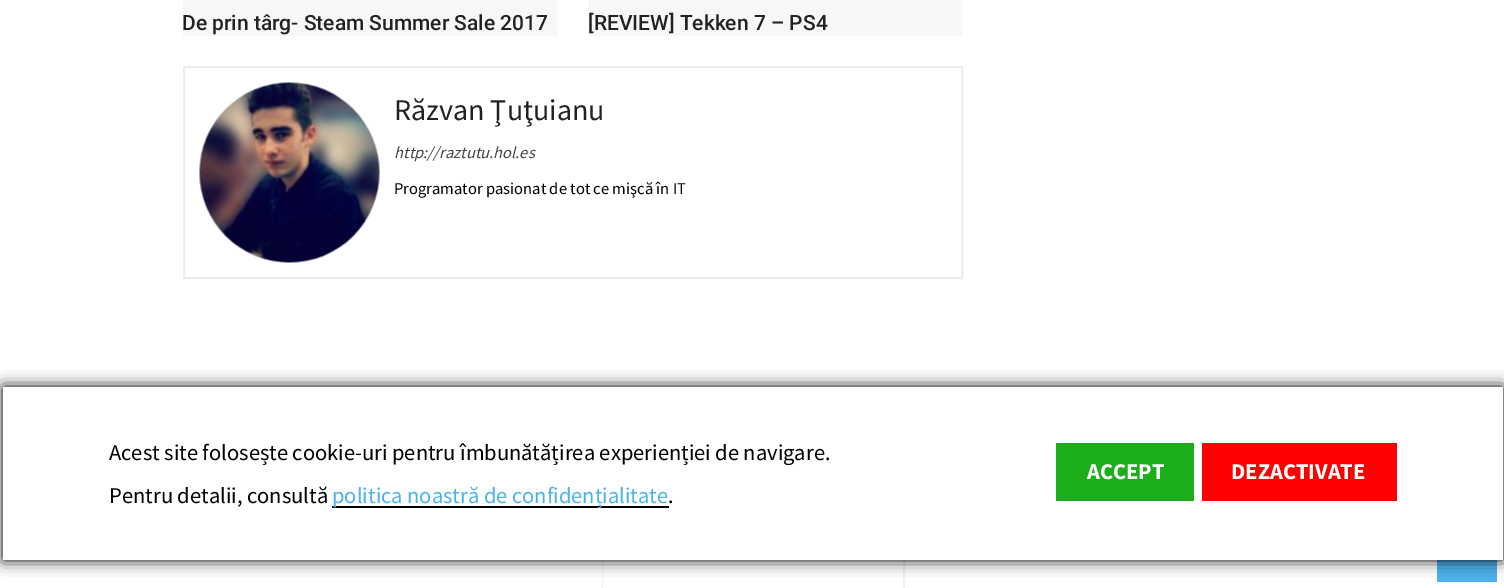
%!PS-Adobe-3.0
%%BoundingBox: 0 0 1504 588
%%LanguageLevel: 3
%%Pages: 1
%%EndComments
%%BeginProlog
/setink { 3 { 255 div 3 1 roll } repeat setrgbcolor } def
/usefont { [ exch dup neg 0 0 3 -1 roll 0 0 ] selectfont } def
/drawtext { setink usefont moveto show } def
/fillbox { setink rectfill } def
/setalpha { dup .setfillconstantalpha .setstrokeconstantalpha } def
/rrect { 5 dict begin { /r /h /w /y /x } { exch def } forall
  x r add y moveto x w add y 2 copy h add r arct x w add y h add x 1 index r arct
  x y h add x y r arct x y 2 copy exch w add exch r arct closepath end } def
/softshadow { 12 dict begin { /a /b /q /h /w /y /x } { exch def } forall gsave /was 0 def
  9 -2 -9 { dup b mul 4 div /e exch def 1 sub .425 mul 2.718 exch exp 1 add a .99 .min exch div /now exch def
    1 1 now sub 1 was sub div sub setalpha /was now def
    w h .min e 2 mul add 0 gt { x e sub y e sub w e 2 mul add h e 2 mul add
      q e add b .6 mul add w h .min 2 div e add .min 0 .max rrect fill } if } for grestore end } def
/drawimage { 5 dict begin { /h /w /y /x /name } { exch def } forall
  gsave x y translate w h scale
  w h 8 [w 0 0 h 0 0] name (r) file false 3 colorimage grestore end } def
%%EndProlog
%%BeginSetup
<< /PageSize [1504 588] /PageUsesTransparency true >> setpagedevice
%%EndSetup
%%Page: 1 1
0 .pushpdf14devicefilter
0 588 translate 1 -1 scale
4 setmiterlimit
0 0 1504 588 255 255 255 fillbox
183 0 374 36 247 247 247 fillbox
(De prin târg- Steam Summer Sale 2017) 182 30 /Roboto-Medium 21 34 34 34 drawtext
588 0 374 36 247 247 247 fillbox
([REVIEW] Tekken 7 – PS4) 588 30 /Roboto-Medium 21 34 34 34 drawtext
237 237 237 setink
2 setlinewidth
184 67 778 211 rectstroke
(assets/img1.rgb) 199 82 181 181 drawimage
(Răzvan Ţuţuianu) 394 120 /SourceSansPro-Regular 30 34 34 34 drawtext
(http://raztutu.hol.es) 394 158 /SourceSansPro-Italic 16.5 68 68 68 drawtext
(Programator pasionat de tot ce mişcă în IT) 394 194 /SourceSansPro-Regular 16.5 0 0 0 drawtext
239 239 239 setink
603 450 301 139 rectstroke
603 560 1 28 255 255 255 fillbox
1437 560 60 22 77 178 236 fillbox
0 0 0 setink
3 387 1500 173 0 7.5 1 softshadow
3 387 1500 173 255 255 255 fillbox
(Acest site folosește cookie-uri pentru îmbunătățirea experienției de navigare.) 109 460 /SourceSansPro-Regular 22.5 0 0 0 drawtext
(Pentru detalii, consultă) 109 503 /SourceSansPro-Regular 22.5 0 0 0 drawtext
332 506 337 2 0 0 0 fillbox
(politica noastră de confidențialitate) 332 503 /SourceSansPro-Regular 22.5 77 178 236 drawtext
(.) 668 503 /SourceSansPro-Regular 22.5 0 0 0 drawtext
1056 443 138 58 29 174 28 fillbox
(ACCEPT) 1087 479 /SourceSansPro-Bold 22.5 255 255 255 drawtext
1202 443 195 58 255 0 0 fillbox
(DEZACTIVATE) 1231 479 /SourceSansPro-Bold 22.5 255 255 255 drawtext
.poppdf14devicefilter showpage
%%EOF
